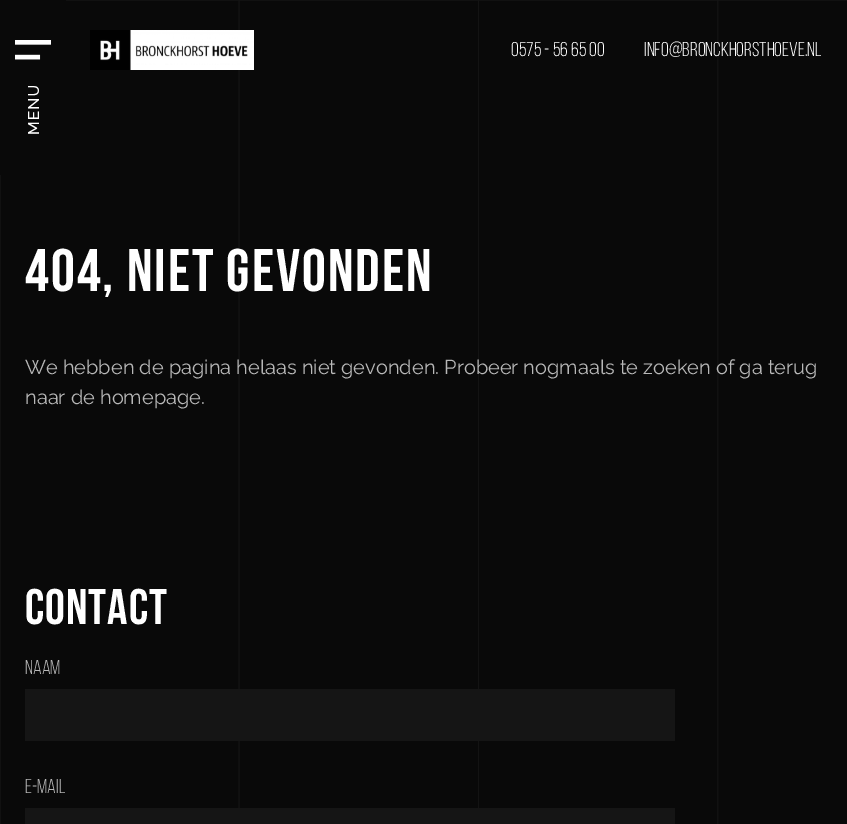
%!PS-Adobe-3.0
%%BoundingBox: 0 0 847 824
%%LanguageLevel: 3
%%Pages: 1
%%EndComments
%%BeginProlog
/setink { 3 { 255 div 3 1 roll } repeat setrgbcolor } def
/usefont { [ exch dup neg 0 0 3 -1 roll 0 0 ] selectfont } def
/drawtext { setink usefont moveto show } def
/fillbox { setink rectfill } def
/drawimage { 5 dict begin { /h /w /y /x /name } { exch def } forall
  gsave x y translate w h scale
  w h 8 [w 0 0 h 0 0] name (r) file false 3 colorimage grestore end } def
%%EndProlog
%%BeginSetup
<< /PageSize [847 824] >> setpagedevice
%%EndSetup
%%Page: 1 1
0 824 translate 1 -1 scale
4 setmiterlimit
0 0 847 824 9 9 9 fillbox
(assets/img1.rgb) 0 0 847 824 drawimage
0 0 66 175 9 9 9 fillbox
(assets/img2.rgb) 15 40 36 94 drawimage
(assets/img3.rgb) 90 30 164 40 drawimage
(0575 - 56 65 00) 511 56 /BebasNeue-Regular 20 255 255 255 drawtext
(INFO@BRONCKHORSTHOEVE.NL) 644 56 /BebasNeue-Regular 20 255 255 255 drawtext
/BebasNeue-Bold 60 usefont
25 291 moveto 2 0 (404, NIET GEVONDEN) ashow
(We hebben de pagina helaas niet gevonden. Probeer nogmaals te zoeken of ga terug) 25 374 /Raleway-Thin 20 184 184 184 drawtext
(naar de homepage.) 25 404 /Raleway-Thin 20 184 184 184 drawtext
/BebasNeue-Bold 50 usefont
255 255 255 setink
25 624 moveto 1 0 (CONTACT) ashow
(Naam) 25 674 /BebasNeue-Regular 20 184 184 184 drawtext
25 689 650 52 21 21 21 fillbox
(E-mail) 25 793 /BebasNeue-Regular 20 184 184 184 drawtext
25 808 650 16 21 21 21 fillbox
showpage
%%EOF
